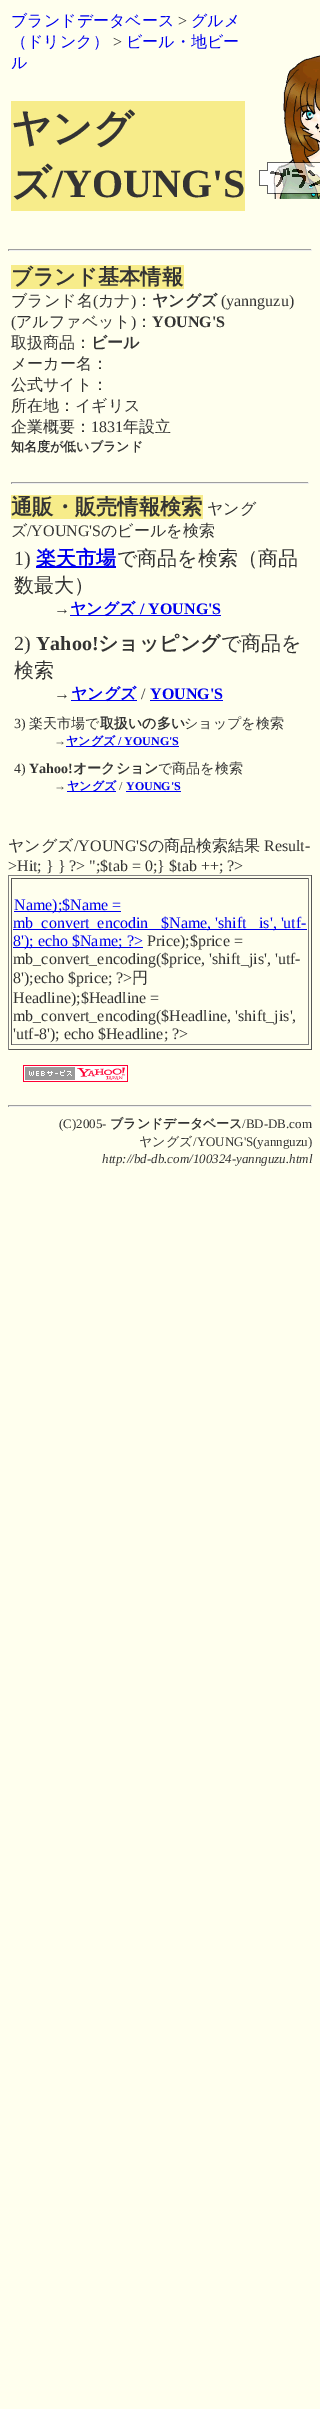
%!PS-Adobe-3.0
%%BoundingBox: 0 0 320 2409
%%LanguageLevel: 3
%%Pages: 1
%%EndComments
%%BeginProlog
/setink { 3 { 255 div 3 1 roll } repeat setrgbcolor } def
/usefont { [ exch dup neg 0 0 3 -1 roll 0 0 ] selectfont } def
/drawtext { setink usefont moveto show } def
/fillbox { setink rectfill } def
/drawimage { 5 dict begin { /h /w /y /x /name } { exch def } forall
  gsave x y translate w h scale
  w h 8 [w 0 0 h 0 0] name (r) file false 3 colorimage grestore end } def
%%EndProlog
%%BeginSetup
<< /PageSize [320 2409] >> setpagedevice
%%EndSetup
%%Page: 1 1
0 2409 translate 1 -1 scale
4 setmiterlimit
0 0 320 2409 255 255 238 fillbox
(ブランドデータベース) 11 26 /WenQuanYiZenHei-Medium 16 0 0 238 drawtext
(>) 178 26 /LiberationSerif-Regular 16 51 51 51 drawtext
(グルメ) 191 26 /WenQuanYiZenHei-Medium 16 0 0 238 drawtext
(（ドリンク）) 11 47 /WenQuanYiZenHei-Medium 16 0 0 238 drawtext
(>) 113 47 /LiberationSerif-Regular 16 51 51 51 drawtext
(ビール・地ビー) 126 47 /WenQuanYiZenHei-Medium 16 0 0 238 drawtext
(ル) 11 68 /WenQuanYiZenHei-Medium 16 0 0 238 drawtext
11 101 234 110 247 236 138 fillbox
(ヤング) 11 142 /WenQuanYiZenHei-Bold 40 51 51 51 drawtext
(ズ) 11 197 /WenQuanYiZenHei-Bold 40 51 51 51 drawtext
(/YOUNG'S) 52 197 /LiberationSerif-Bold 40 51 51 51 drawtext
(assets/img1.rgb) 259 55 61 144 drawimage
8 249 304 1 159 159 159 fillbox
311 249 1 2 238 238 238 fillbox
8 250 304 1 238 238 238 fillbox
8 249 1 2 159 159 159 fillbox
11 265 173 24 247 236 138 fillbox
(ブランド基本情報) 11 284 /WenQuanYiZenHei-Bold 21.25 51 51 51 drawtext
(ブランド名) 11 306 /WenQuanYiZenHei-Medium 16 51 51 51 drawtext
(\() 93 306 /LiberationSerif-Regular 16 51 51 51 drawtext
(カナ) 98 306 /WenQuanYiZenHei-Medium 16 51 51 51 drawtext
(\)) 131 306 /LiberationSerif-Regular 16 51 51 51 drawtext
(：) 136 306 /WenQuanYiZenHei-Medium 16 51 51 51 drawtext
(ヤングズ) 152 306 /WenQuanYiZenHei-Bold 16 51 51 51 drawtext
(\(yannguzu\)) 221 306 /LiberationSerif-Regular 16 51 51 51 drawtext
(\() 11 327 /LiberationSerif-Regular 16 51 51 51 drawtext
(アルファベット) 16 327 /WenQuanYiZenHei-Medium 16 51 51 51 drawtext
(\)) 131 327 /LiberationSerif-Regular 16 51 51 51 drawtext
(：) 136 327 /WenQuanYiZenHei-Medium 16 51 51 51 drawtext
(YOUNG'S) 152 327 /LiberationSerif-Bold 16 51 51 51 drawtext
(取扱商品：) 11 348 /WenQuanYiZenHei-Medium 16 51 51 51 drawtext
(ビール) 91 348 /WenQuanYiZenHei-Bold 16 51 51 51 drawtext
(メーカー名：) 11 369 /WenQuanYiZenHei-Medium 16 51 51 51 drawtext
(公式サイト：) 11 390 /WenQuanYiZenHei-Medium 16 51 51 51 drawtext
(所在地：イギリス) 11 411 /WenQuanYiZenHei-Medium 16 51 51 51 drawtext
(企業概要：) 11 432 /WenQuanYiZenHei-Medium 16 51 51 51 drawtext
(1831) 91 432 /LiberationSerif-Regular 16 51 51 51 drawtext
(年設立) 123 432 /WenQuanYiZenHei-Medium 16 51 51 51 drawtext
(知名度が低いブランド) 11 451 /WenQuanYiZenHei-Bold 13 51 51 51 drawtext
11 482 298 1 159 159 159 fillbox
308 482 1 2 238 238 238 fillbox
11 483 298 1 238 238 238 fillbox
11 482 1 2 159 159 159 fillbox
11 495 192 24 247 236 138 fillbox
(通販・販売情報検索) 11 514 /WenQuanYiZenHei-Bold 21.25 51 51 51 drawtext
(ヤング) 207 514 /WenQuanYiZenHei-Medium 16 51 51 51 drawtext
(ズ) 11 536 /WenQuanYiZenHei-Medium 16 51 51 51 drawtext
(/YOUNG'S) 27 536 /LiberationSerif-Regular 16 51 51 51 drawtext
(のビールを検索) 101 536 /WenQuanYiZenHei-Medium 16 51 51 51 drawtext
(1\)) 14 565 /LiberationSerif-Regular 20 51 51 51 drawtext
36 566 80 2 0 0 238 fillbox
(楽天市場) 36 565 /WenQuanYiZenHei-Bold 20 0 0 238 drawtext
(で商品を検索（商品) 117 565 /WenQuanYiZenHei-Medium 20 51 51 51 drawtext
(数最大）) 14 592 /WenQuanYiZenHei-Medium 20 51 51 51 drawtext
(→) 54 614 /LiberationSerif-Regular 16 51 51 51 drawtext
70 615 151 1 0 0 238 fillbox
(ヤングズ) 70 614 /WenQuanYiZenHei-Bold 16 0 0 238 drawtext
(/ YOUNG'S) 140 614 /LiberationSerif-Bold 16 0 0 238 drawtext
(2\)) 14 650 /LiberationSerif-Regular 20 51 51 51 drawtext
(Yahoo!) 36 650 /LiberationSerif-Bold 20 51 51 51 drawtext
(ショッピング) 98 650 /WenQuanYiZenHei-Bold 20 51 51 51 drawtext
(で商品を) 221 650 /WenQuanYiZenHei-Medium 20 51 51 51 drawtext
(検索) 14 677 /WenQuanYiZenHei-Medium 20 51 51 51 drawtext
(→) 54 699 /LiberationSerif-Regular 16 51 51 51 drawtext
71 700 66 1 0 0 238 fillbox
(ヤングズ) 71 699 /WenQuanYiZenHei-Bold 16 0 0 238 drawtext
(/) 141 699 /LiberationSerif-Regular 16 51 51 51 drawtext
(YOUNG'S) 150 699 /LiberationSerif-Bold 16 0 0 238 drawtext
150 700 73 1 0 0 238 fillbox
(3\)) 14 728 /LiberationSerif-Regular 14 51 51 51 drawtext
(楽天市場で) 29 728 /WenQuanYiZenHei-Medium 14 51 51 51 drawtext
(取扱いの多い) 100 728 /WenQuanYiZenHei-Bold 14 51 51 51 drawtext
(ショップを検索) 184 728 /WenQuanYiZenHei-Medium 14 51 51 51 drawtext
(→) 54 745 /LiberationSerif-Regular 12 51 51 51 drawtext
66 746 113 1 0 0 238 fillbox
(ヤングズ) 66 745 /WenQuanYiZenHei-Bold 12 0 0 238 drawtext
(/ YOUNG'S) 118 745 /LiberationSerif-Bold 12 0 0 238 drawtext
(4\)) 14 773 /LiberationSerif-Regular 14 51 51 51 drawtext
(Yahoo!) 29 773 /LiberationSerif-Bold 14 51 51 51 drawtext
(オークション) 73 773 /WenQuanYiZenHei-Bold 14 51 51 51 drawtext
(で商品を検索) 158 773 /WenQuanYiZenHei-Medium 14 51 51 51 drawtext
(→) 54 790 /LiberationSerif-Regular 12 51 51 51 drawtext
67 791 49 1 0 0 238 fillbox
(ヤングズ) 67 790 /WenQuanYiZenHei-Bold 12 0 0 238 drawtext
(/) 119 790 /LiberationSerif-Regular 12 51 51 51 drawtext
(YOUNG'S) 126 790 /LiberationSerif-Bold 12 0 0 238 drawtext
126 791 55 1 0 0 238 fillbox
(ヤングズ) 8 851 /WenQuanYiZenHei-Medium 16 51 51 51 drawtext
(/YOUNG'S) 74 851 /LiberationSerif-Regular 16 51 51 51 drawtext
(の商品検索結果) 148 851 /WenQuanYiZenHei-Medium 16 51 51 51 drawtext
(Result-) 264 851 /LiberationSerif-Regular 16 51 51 51 drawtext
(>Hit; } } ?> ";$tab = 0;} $tab ++; ?>) 8 871 /LiberationSerif-Regular 16 51 51 51 drawtext
8 875 304 1 128 128 128 fillbox
311 875 1 175 85 85 85 fillbox
8 1049 304 1 85 85 85 fillbox
8 875 1 175 128 128 128 fillbox
11 878 298 1 85 85 85 fillbox
308 878 1 167 128 128 128 fillbox
11 1044 298 1 128 128 128 fillbox
11 878 1 167 85 85 85 fillbox
14 911 107 1 0 0 238 fillbox
(Name\);$Name =) 14 910 /LiberationSerif-Regular 16 0 0 238 drawtext
13 929 294 1 0 0 238 fillbox
(mb_convert_encodin) 13 928 /LiberationSerif-Regular 16 0 0 238 drawtext
($Name, 'shift) 161 928 /LiberationSerif-Regular 16 0 0 238 drawtext
(is', 'utf-) 259 928 /LiberationSerif-Regular 16 0 0 238 drawtext
13 947 130 1 0 0 238 fillbox
(8'\); echo $Name; ?>) 13 946 /LiberationSerif-Regular 16 0 0 238 drawtext
(Price\);$price =) 147 946 /LiberationSerif-Regular 16 51 51 51 drawtext
(mb_convert_encoding\($price, 'shift_jis', 'utf-) 13 964 /LiberationSerif-Regular 16 51 51 51 drawtext
(8'\);echo $price; ?>) 13 983 /LiberationSerif-Regular 16 51 51 51 drawtext
(円) 132 983 /WenQuanYiZenHei-Medium 16 51 51 51 drawtext
(Headline\);$Headline =) 13 1003 /LiberationSerif-Regular 16 51 51 51 drawtext
(mb_convert_encoding\($Headline, 'shift_jis',) 13 1021 /LiberationSerif-Regular 16 51 51 51 drawtext
('utf-8'\); echo $Headline; ?>) 13 1039 /LiberationSerif-Regular 16 51 51 51 drawtext
(assets/img2.rgb) 23 1065 105 17 drawimage
8 1105 304 1 159 159 159 fillbox
311 1105 1 2 238 238 238 fillbox
8 1106 304 1 238 238 238 fillbox
8 1105 1 2 159 159 159 fillbox
(\(C\)2005-) 59 1128 /LiberationSerif-Regular 13 51 51 51 drawtext
(ブランドデータベース) 110 1128 /WenQuanYiZenHei-Bold 13 51 51 51 drawtext
(/BD-DB.com) 242 1128 /LiberationSerif-Regular 13 51 51 51 drawtext
(ヤングズ) 139 1146 /WenQuanYiZenHei-Medium 13 51 51 51 drawtext
(/YOUNG'S\(yannguzu\)) 193 1146 /LiberationSerif-Regular 13 51 51 51 drawtext
(http://bd-db.com/100324-yannguzu.html) 102 1163 /LiberationSerif-Italic 13 51 51 51 drawtext
showpage
%%EOF
